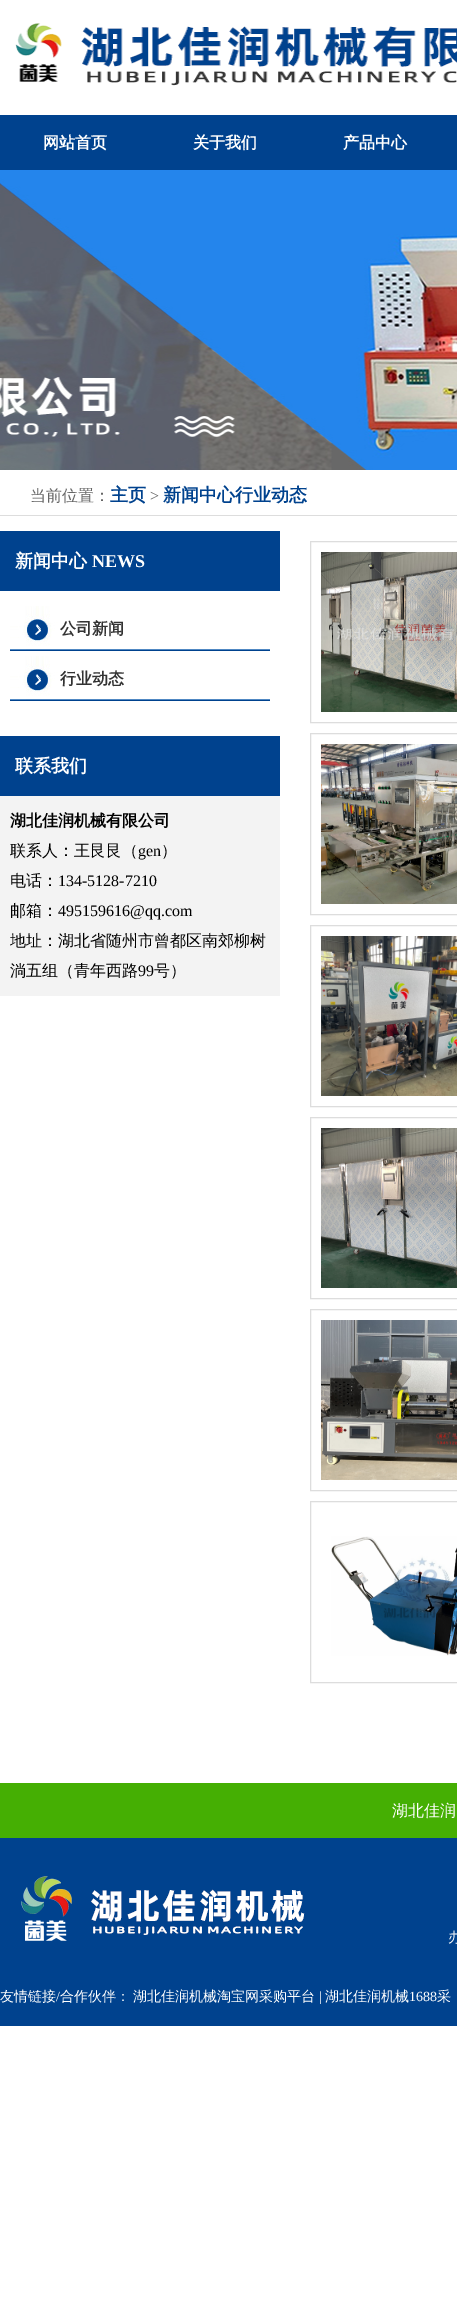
%!PS-Adobe-3.0
%%BoundingBox: 0 0 457 2301
%%LanguageLevel: 3
%%Pages: 1
%%EndComments
%%BeginProlog
/setink { 3 { 255 div 3 1 roll } repeat setrgbcolor } def
/usefont { [ exch dup neg 0 0 3 -1 roll 0 0 ] selectfont } def
/drawtext { setink usefont moveto show } def
/fillbox { setink rectfill } def
/drawimage { 5 dict begin { /h /w /y /x /name } { exch def } forall
  gsave x y translate w h scale
  w h 8 [w 0 0 h 0 0] name (r) file false 3 colorimage grestore end } def
%%EndProlog
%%BeginSetup
<< /PageSize [457 2301] >> setpagedevice
%%EndSetup
%%Page: 1 1
0 2301 translate 1 -1 scale
4 setmiterlimit
0 0 457 2301 255 255 255 fillbox
(assets/img1.rgb) 15 23 442 63 drawimage
0 115 457 55 0 66 142 fillbox
(网站首页) 43 148 /WenQuanYiZenHei-Bold 16 255 255 255 drawtext
(关于我们) 193 148 /WenQuanYiZenHei-Bold 16 255 255 255 drawtext
(产品中心) 343 148 /WenQuanYiZenHei-Bold 16 255 255 255 drawtext
(assets/img2.rgb) 0 170 457 300 drawimage
0 515 457 1 221 221 221 fillbox
(当前位置：) 30 501 /WenQuanYiZenHei-Medium 16 102 102 102 drawtext
(主页) 110 501 /WenQuanYiZenHei-Bold 18 0 66 142 drawtext
(>) 150 501 /LiberationSerif-Regular 16 102 102 102 drawtext
(新闻中心行业动态) 163 501 /WenQuanYiZenHei-Bold 18 0 66 142 drawtext
0 531 280 60 0 66 142 fillbox
(新闻中心) 15 567 /WenQuanYiZenHei-Bold 18 255 255 255 drawtext
(NEWS) 92 567 /LiberationSerif-Bold 18 255 255 255 drawtext
(assets/img3.rgb) 10 606 260 45 drawimage
(公司新闻) 60 634 /WenQuanYiZenHei-Bold 16 51 51 51 drawtext
(assets/img3.rgb) 10 656 260 45 drawimage
(行业动态) 60 684 /WenQuanYiZenHei-Bold 16 51 51 51 drawtext
0 736 280 60 0 66 142 fillbox
(联系我们) 15 772 /WenQuanYiZenHei-Bold 18 255 255 255 drawtext
0 796 280 200 243 243 243 fillbox
(湖北佳润机械有限公司) 10 826 /WenQuanYiZenHei-Bold 16 0 0 0 drawtext
(联系人：王艮艮（) 10 856 /WenQuanYiZenHei-Medium 16 0 0 0 drawtext
(gen) 138 856 /LiberationSerif-Regular 16 0 0 0 drawtext
(）) 161 856 /WenQuanYiZenHei-Medium 16 0 0 0 drawtext
(电话：) 10 886 /WenQuanYiZenHei-Medium 16 0 0 0 drawtext
(134-5128-7210) 58 886 /LiberationSerif-Regular 16 0 0 0 drawtext
(邮箱：) 10 916 /WenQuanYiZenHei-Medium 16 0 0 0 drawtext
(495159616@qq.com) 58 916 /LiberationSerif-Regular 16 0 0 0 drawtext
(地址：湖北省随州市曾都区南郊柳树) 10 946 /WenQuanYiZenHei-Medium 16 0 0 0 drawtext
(淌五组（青年西路) 10 976 /WenQuanYiZenHei-Medium 16 0 0 0 drawtext
(99) 138 976 /LiberationSerif-Regular 16 0 0 0 drawtext
(号）) 154 976 /WenQuanYiZenHei-Medium 16 0 0 0 drawtext
221 221 221 setink
310.5 541.5 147 181 rectstroke
(assets/img4.rgb) 321 552 136 160 drawimage
310.5 733.5 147 181 rectstroke
(assets/img5.rgb) 321 744 136 160 drawimage
310.5 925.5 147 181 rectstroke
(assets/img6.rgb) 321 936 136 160 drawimage
310.5 1117.5 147 181 rectstroke
(assets/img7.rgb) 321 1128 136 160 drawimage
310.5 1309.5 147 181 rectstroke
(assets/img8.rgb) 321 1320 136 160 drawimage
310.5 1501.5 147 181 rectstroke
(assets/img9.rgb) 331 1536 126 120 drawimage
0 1783 457 55 69 175 3 fillbox
(湖北佳润) 392 1816 /WenQuanYiZenHei-Medium 16 255 255 255 drawtext
0 1838 457 188 0 66 142 fillbox
(assets/img10.rgb) 21 1876 284 65 drawimage
(办) 448 1942 /WenQuanYiZenHei-Medium 14 255 255 255 drawtext
(友情链接) 0 2001 /WenQuanYiZenHei-Medium 14 255 255 255 drawtext
(/) 56 2001 /LiberationSerif-Regular 14 255 255 255 drawtext
(合作伙伴：) 60 2001 /WenQuanYiZenHei-Medium 14 255 255 255 drawtext
(湖北佳润机械淘宝网采购平台) 133 2001 /WenQuanYiZenHei-Medium 14 255 255 255 drawtext
(|) 319 2001 /LiberationSerif-Regular 14 255 255 255 drawtext
(湖北佳润机械) 325 2001 /WenQuanYiZenHei-Medium 14 255 255 255 drawtext
(1688) 409 2001 /LiberationSerif-Regular 14 255 255 255 drawtext
(采) 437 2001 /WenQuanYiZenHei-Medium 14 255 255 255 drawtext
showpage
%%EOF
